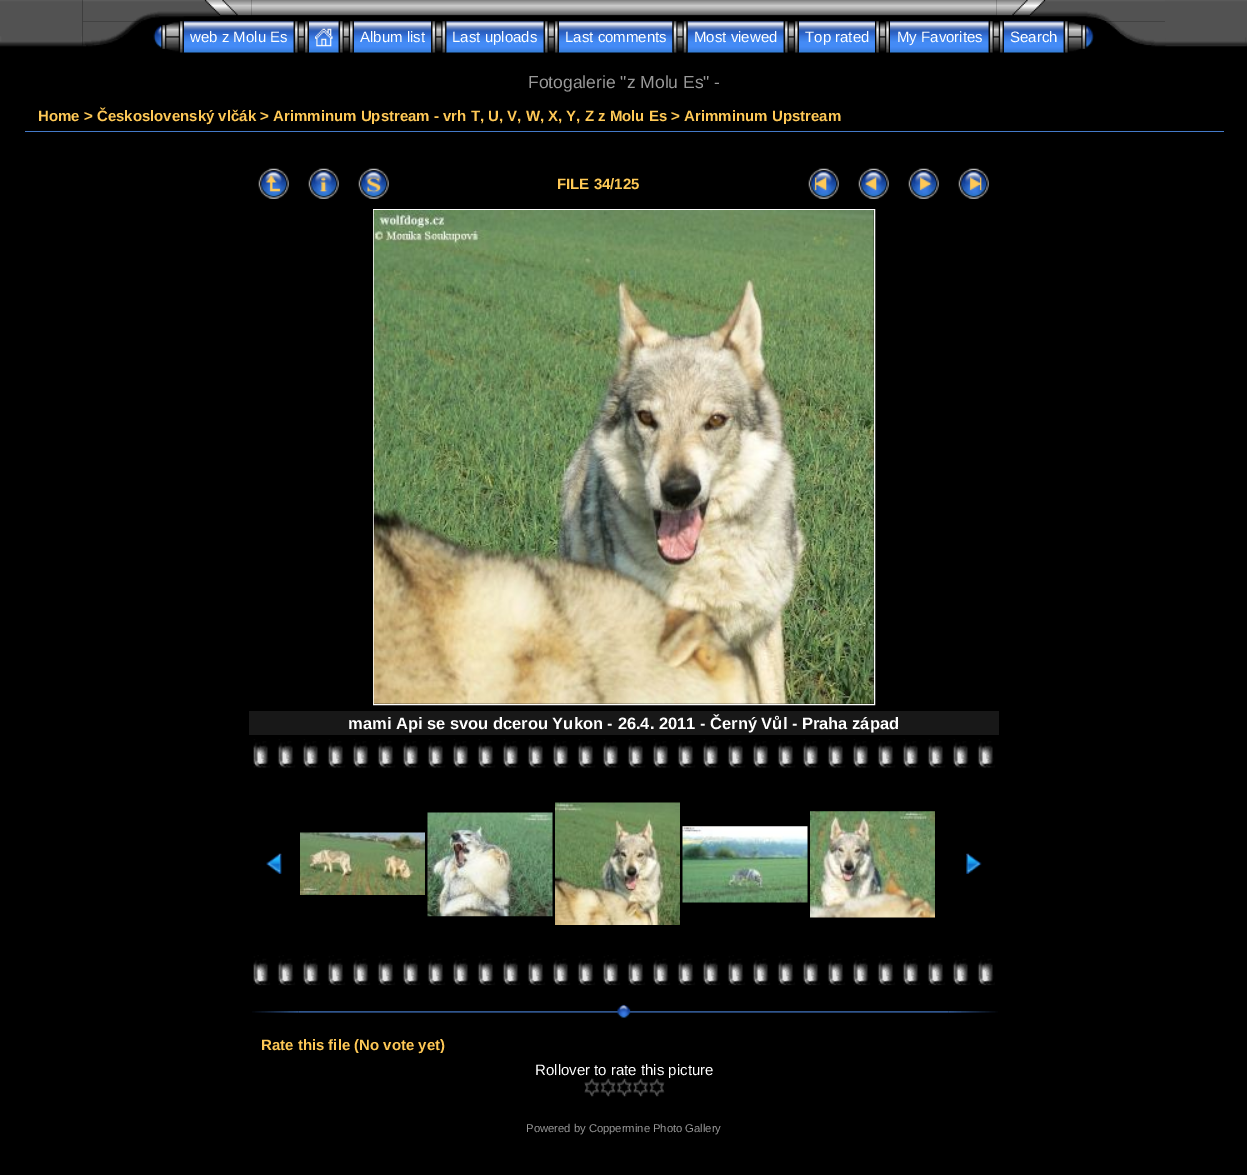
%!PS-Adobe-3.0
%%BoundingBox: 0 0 1247 1175
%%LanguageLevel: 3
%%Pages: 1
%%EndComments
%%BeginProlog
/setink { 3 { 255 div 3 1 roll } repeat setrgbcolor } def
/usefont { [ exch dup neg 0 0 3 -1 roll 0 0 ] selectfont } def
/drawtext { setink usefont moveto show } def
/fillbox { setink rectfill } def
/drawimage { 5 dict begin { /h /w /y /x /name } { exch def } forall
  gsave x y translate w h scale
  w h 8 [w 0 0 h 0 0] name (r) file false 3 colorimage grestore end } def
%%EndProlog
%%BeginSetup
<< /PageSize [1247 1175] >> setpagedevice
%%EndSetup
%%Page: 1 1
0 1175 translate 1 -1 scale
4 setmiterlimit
0 0 1247 1175 0 0 0 fillbox
(assets/img1.rgb) 0 0 83 47 drawimage
(assets/img2.rgb) 82 0 170 22 drawimage
(assets/img3.rgb) 251 0 746 16 drawimage
(assets/img4.rgb) 996 0 169 22 drawimage
(assets/img5.rgb) 82 21 59 26 drawimage
(assets/img7.rgb) 183 21 111 32 drawimage
(assets/img6.rgb) 153 21 31 32 drawimage
(web z Molu Es) 190 42 /LiberationSans-Regular 15 255 255 255 drawtext
(assets/img9.rgb) 308 21 31 32 drawimage
(assets/img8.rgb) 293 21 16 32 drawimage
(assets/img10.rgb) 315 28 18 19 drawimage
(assets/img12.rgb) 353 21 79 32 drawimage
(assets/img11.rgb) 338 21 16 32 drawimage
(Album list) 360 42 /LiberationSans-Regular 15 255 255 255 drawtext
(assets/img14.rgb) 446 21 98 32 drawimage
(assets/img13.rgb) 431 21 16 32 drawimage
(Last uploads) 452 42 /LiberationSans-Regular 15 255 255 255 drawtext
(assets/img15.rgb) 558 21 115 32 drawimage
(assets/img8.rgb) 543 21 16 32 drawimage
(Last comments) 565 42 /LiberationSans-Regular 15 255 255 255 drawtext
(assets/img17.rgb) 687 21 97 32 drawimage
(assets/img16.rgb) 672 21 16 32 drawimage
(Most viewed) 694 42 /LiberationSans-Regular 15 255 255 255 drawtext
(assets/img18.rgb) 798 21 77 32 drawimage
(assets/img8.rgb) 783 21 16 32 drawimage
(Top rated) 805 42 /LiberationSans-Regular 15 255 255 255 drawtext
(assets/img19.rgb) 876 21 13 32 drawimage
(assets/img20.rgb) 890 21 99 32 drawimage
(My Favorites) 897 42 /LiberationSans-Regular 15 255 255 255 drawtext
(assets/img21.rgb) 1003 21 61 32 drawimage
(assets/img11.rgb) 988 21 16 32 drawimage
(Search) 1010 42 /LiberationSans-Regular 15 255 255 255 drawtext
(assets/img22.rgb) 1063 21 33 32 drawimage
(assets/img23.rgb) 1104 21 61 26 drawimage
(assets/img24.rgb) 1165 0 82 47 drawimage
(Fotogalerie "z Molu Es" -) 528 88 /LiberationSans-Regular 17.5 153 153 153 drawtext
25 131 1199 1 68 122 201 fillbox
(Home > Československý vlčák > Arimminum Upstream - vrh T, U, V, W, X, Y, Z z Molu Es > Arimminum Upstream) 38 121 /LiberationSans-Bold 15 255 201 86 drawtext
(assets/img25.rgb) 258 168 31 31 drawimage
(assets/img26.rgb) 308 168 31 31 drawimage
(assets/img27.rgb) 358 168 31 31 drawimage
(FILE 34/125) 557 189 /LiberationSans-Bold 15 255 201 86 drawtext
(assets/img28.rgb) 808 168 31 31 drawimage
(assets/img29.rgb) 858 168 31 31 drawimage
(assets/img30.rgb) 908 168 31 31 drawimage
(assets/img31.rgb) 958 168 31 31 drawimage
255 255 255 setink
373.5 209.5 501 495 rectstroke
(assets/img32.rgb) 373 210 501 494 drawimage
249 711 750 24 24 24 24 fillbox
(mami Api se svou dcerou Yukon - 26.4. 2011 - Černý Vůl - Praha západ) 348 729 /LiberationSans-Bold 16.5 255 255 255 drawtext
(assets/img33.rgb) 253 739 742 29 drawimage
(assets/img34.rgb) 253 749 11 15 drawimage
(assets/img35.rgb) 266 853 16 21 drawimage
(assets/img36.rgb) 300 832 125 63 drawimage
(assets/img37.rgb) 427 812 126 105 drawimage
(assets/img38.rgb) 555 802 125 123 drawimage
(assets/img39.rgb) 682 826 126 77 drawimage
(assets/img40.rgb) 810 811 125 107 drawimage
(assets/img41.rgb) 966 853 16 21 drawimage
(assets/img42.rgb) 253 955 742 31 drawimage
(assets/img43.rgb) 253 966 2 16 drawimage
(assets/img45.rgb) 298 1011 651 2 drawimage
(assets/img44.rgb) 252 1011 47 2 drawimage
(assets/img46.rgb) 617 1004 14 14 drawimage
(assets/img47.rgb) 948 1011 50 2 drawimage
(Rate this file \(No vote yet\)) 261 1050 /LiberationSans-Bold 15 255 201 86 drawtext
(Rollover to rate this picture) 535 1075 /LiberationSans-Regular 15 255 255 255 drawtext
(assets/img48.rgb) 584 1078 16 19 drawimage
(assets/img49.rgb) 600 1078 16 19 drawimage
(assets/img50.rgb) 616 1078 16 19 drawimage
(assets/img51.rgb) 632 1078 17 19 drawimage
(assets/img52.rgb) 649 1078 16 19 drawimage
(Powered by Coppermine Photo Gallery) 526 1132 /LiberationSans-Regular 11.25 153 153 153 drawtext
showpage
%%EOF
